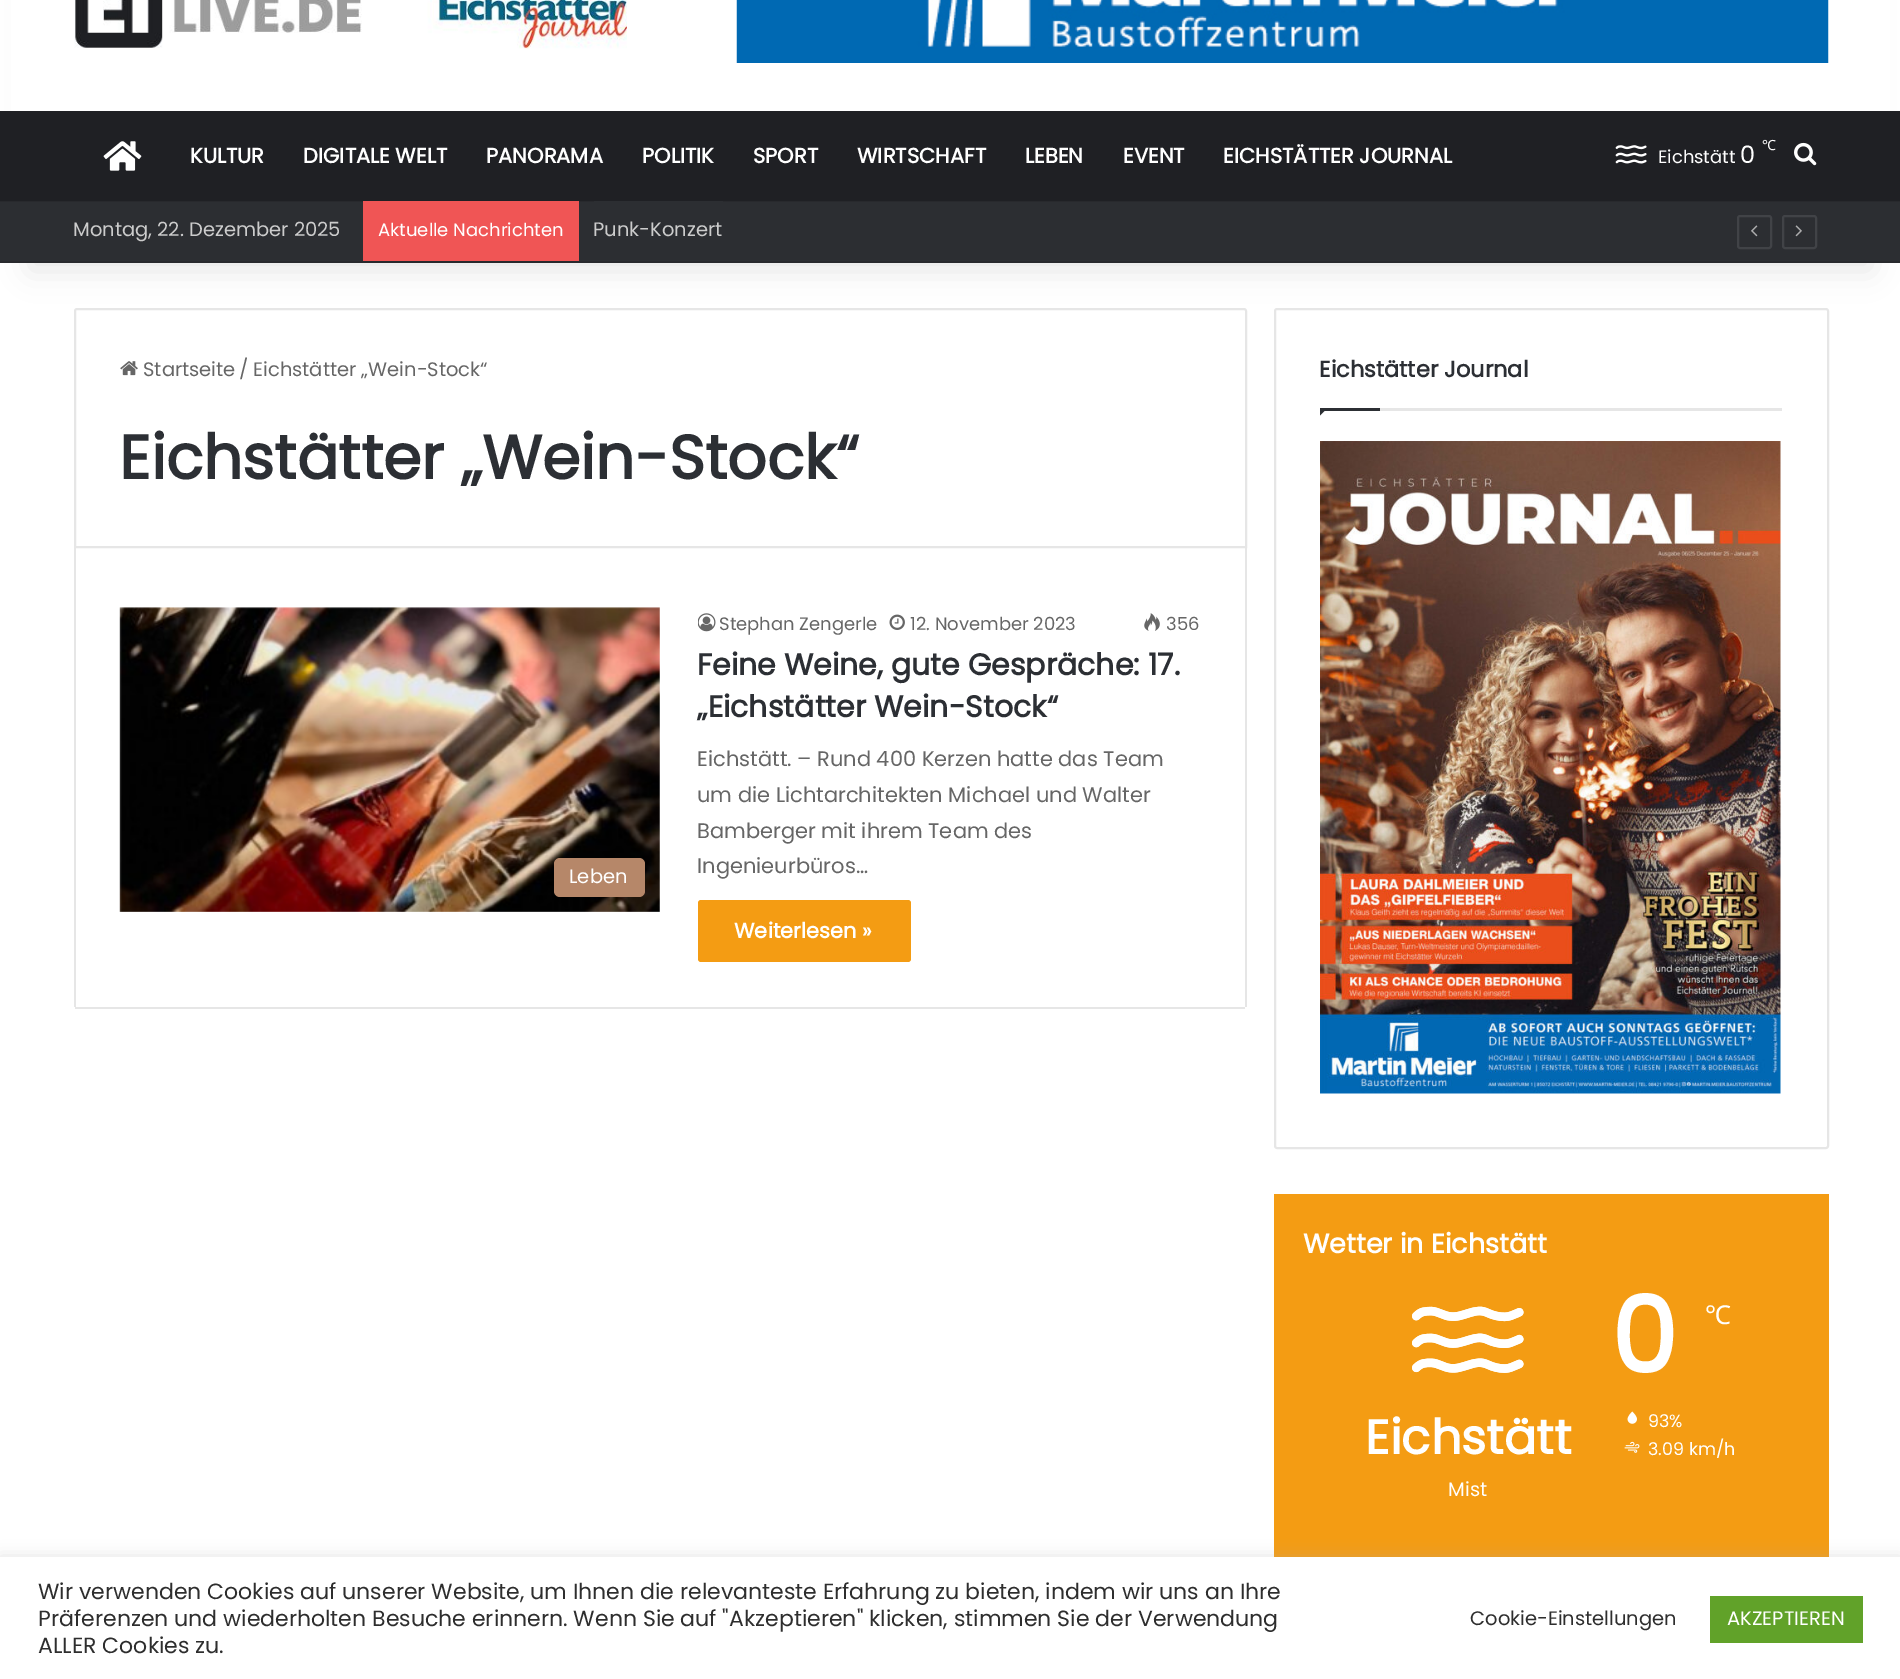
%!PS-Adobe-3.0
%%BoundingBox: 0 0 1900 1679
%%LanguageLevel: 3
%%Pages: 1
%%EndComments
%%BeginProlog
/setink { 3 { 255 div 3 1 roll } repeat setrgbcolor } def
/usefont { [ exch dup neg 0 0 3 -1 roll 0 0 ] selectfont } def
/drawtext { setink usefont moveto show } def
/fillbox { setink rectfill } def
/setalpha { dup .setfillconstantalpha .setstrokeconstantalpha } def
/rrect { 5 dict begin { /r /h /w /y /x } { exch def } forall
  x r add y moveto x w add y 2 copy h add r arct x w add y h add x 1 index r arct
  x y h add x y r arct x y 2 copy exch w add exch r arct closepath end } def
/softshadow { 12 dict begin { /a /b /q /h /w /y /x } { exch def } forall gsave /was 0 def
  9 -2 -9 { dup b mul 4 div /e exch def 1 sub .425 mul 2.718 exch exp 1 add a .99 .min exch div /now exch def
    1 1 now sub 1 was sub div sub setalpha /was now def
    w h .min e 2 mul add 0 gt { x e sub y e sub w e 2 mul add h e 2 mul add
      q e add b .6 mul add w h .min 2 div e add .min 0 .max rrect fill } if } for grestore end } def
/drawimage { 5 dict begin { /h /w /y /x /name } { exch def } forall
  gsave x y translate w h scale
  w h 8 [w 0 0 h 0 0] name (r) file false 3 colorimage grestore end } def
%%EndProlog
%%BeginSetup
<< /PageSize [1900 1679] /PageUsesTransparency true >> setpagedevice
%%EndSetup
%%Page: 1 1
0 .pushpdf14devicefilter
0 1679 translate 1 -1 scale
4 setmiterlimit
0 0 1900 1679 255 255 255 fillbox
230 230 230 setink
2 setlinewidth
77 309 moveto 1244 309 lineto 1245 309 1246 310 1246 311 curveto 1246 547 lineto 75 547 lineto 75 311 lineto 75 310 76 309 77 309 curveto closepath stroke
1275 309 553 839 2 rrect stroke
0 0 0 setink
30 -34 1841 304 0 15 0.1 softshadow
11 0 1879 111 255 255 255 fillbox
(assets/img1.rgb) 74 0 553 49 drawimage
(assets/img2.rgb) 736 0 1093 63 drawimage
0 111 1900 90 31 32 36 fillbox
(assets/img3.rgb) 103 141 39 30 drawimage
(KULTUR) 190 163 /Poppins-Bold 21 255 255 255 drawtext
(DIGITALE WELT) 303 163 /Poppins-Bold 21 255 255 255 drawtext
(PANORAMA) 486 163 /Poppins-Bold 21 255 255 255 drawtext
(POLITIK) 642 163 /Poppins-Bold 21 255 255 255 drawtext
(SPORT) 753 163 /Poppins-Bold 21 255 255 255 drawtext
(WIRTSCHAFT) 857 163 /Poppins-Bold 21 255 255 255 drawtext
(LEBEN) 1025 163 /Poppins-Bold 21 255 255 255 drawtext
(EVENT) 1123 163 /Poppins-Bold 21 255 255 255 drawtext
(EICHSTÄTTER JOURNAL) 1223 163 /Poppins-Bold 21 255 255 255 drawtext
(assets/img4.rgb) 1615 145 32 19 drawimage
(Eichstätt) 1658 163 /Poppins-Regular 18 255 255 255 drawtext
(0) 1740 163 /Poppins-Regular 24 255 255 255 drawtext
(℃) 1762 150 /NotoSans-Regular 14 255 255 255 drawtext
(assets/img5.rgb) 1794 142 23 24 drawimage
0 202 1900 59 44 46 50 fillbox
0 201 1900 1 40 41 45 fillbox
0 261 1900 2 40 41 45 fillbox
(Montag, 22. Dezember 2025) 73 236 /Poppins-Regular 19.5 204 204 204 drawtext
363 201 216 60 240 85 85 fillbox
(Aktuelle Nachrichten) 378 236 /Poppins-Regular 18 255 255 255 drawtext
594 201 129 1 44 46 50 fillbox
(Punk-Konzert) 593 236 /Poppins-Regular 19.5 204 204 204 drawtext
65 67 71 setink
1738 216 33 32 2 rrect stroke
(assets/img6.rgb) 1751 225 7 12 drawimage
1783 216 33 32 2 rrect stroke
(assets/img7.rgb) 1795 225 7 12 drawimage
(assets/img8.rgb) 120 361 18 15 drawimage
(Startseite) 143 376 /Poppins-Regular 19.5 102 102 102 drawtext
(/) 239 376 /Poppins-Regular 19.5 102 102 102 drawtext
(Eichstätter „Wein-Stock“) 253 376 /Poppins-Regular 19.5 102 102 102 drawtext
(Eichstätter „Wein-Stock“) 119 479 /Poppins-Bold 61.5 44 47 52 drawtext
1245 548 2 459 230 230 230 fillbox
75 1007 1170 2 230 230 230 fillbox
74 548 2 459 230 230 230 fillbox
(assets/img9.rgb) 119 607 541 305 drawimage
182 135 105 setink
554 858 91 39 6 rrect fill
(Leben) 569 883 /Poppins-Regular 19.5 255 255 255 drawtext
(assets/img10.rgb) 698 613 18 19 drawimage
(Stephan Zengerle) 719 630 /Poppins-Regular 18 102 102 102 drawtext
(assets/img11.rgb) 889 614 16 16 drawimage
(12. November 2023) 910 630 /Poppins-Regular 18 102 102 102 drawtext
(assets/img12.rgb) 1144 613 16 18 drawimage
(356) 1166 630 /Poppins-Regular 18 102 102 102 drawtext
(Feine Weine, gute Gespräche: 17.) 697 675 /Poppins-Bold 30 44 47 52 drawtext
(„Eichstätter Wein-Stock“) 697 717 /Poppins-Bold 30 44 47 52 drawtext
(Eichstätt. – Rund 400 Kerzen hatte das Team) 697 766 /Poppins-Regular 21 102 102 102 drawtext
(um die Lichtarchitekten Michael und Walter) 697 802 /Poppins-Regular 21 102 102 102 drawtext
(Bamberger mit ihrem Team des) 697 838 /Poppins-Regular 21 102 102 102 drawtext
(Ingenieurbüros…) 697 873 /Poppins-Regular 21 102 102 102 drawtext
244 156 19 setink
698 900 213 62 3 rrect fill
(Weiterlesen ») 734 938 /Poppins-Bold 21 255 255 255 drawtext
1380 408 402 3 230 230 230 fillbox
(Eichstätter Journal) 1319 377 /Poppins-Bold 22.5 44 47 52 drawtext
1320 408 moveto 1327.5 408 lineto 1320 415.5 lineto closepath fill
1320 408 60 3 44 47 52 fillbox
(assets/img13.rgb) 1320 441 461 653 drawimage
1274 1194 555 363 244 156 19 fillbox
(Wetter in Eichstätt) 1303 1253 /Poppins-Bold 27 255 255 255 drawtext
(assets/img14.rgb) 1412 1306 112 67 drawimage
(assets/img15.rgb) 1412 1306 112 67 drawimage
(Eichstätt) 1365 1454 /Poppins-Bold 48 255 255 255 drawtext
(Mist) 1448 1496 /Poppins-Regular 19.5 255 255 255 drawtext
(0) 1611 1373 /Poppins-Bold 105 255 255 255 drawtext
(℃) 1705 1324 /NotoSans-Regular 26 255 255 255 drawtext
(assets/img16.rgb) 1627 1411 10 13 drawimage
(93%) 1648 1427 /Poppins-Regular 17.5 255 255 255 drawtext
(assets/img17.rgb) 1624 1441 16 12 drawimage
(3.09 km/h) 1648 1455 /Poppins-Regular 17.5 255 255 255 drawtext
172 171 171 setink
0 1556 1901 123 0 7.5 0.3 softshadow
0 1557 1900 122 255 255 255 fillbox
(Wir verwenden Cookies auf unserer Website, um Ihnen die relevanteste Erfahrung zu bieten, indem wir uns an Ihre) 38 1599 /Poppins-Regular 22 46 46 46 drawtext
(Präferenzen und wiederholten Besuche erinnern. Wenn Sie auf "Akzeptieren" klicken, stimmen Sie der Verwendung) 38 1626 /Poppins-Regular 22 46 46 46 drawtext
(ALLER Cookies zu.) 38 1653 /Poppins-Regular 22 46 46 46 drawtext
(Cookie-Einstellungen) 1470 1625 /Poppins-Regular 19.5 46 46 46 drawtext
1710 1596 153 47 97 162 41 fillbox
(AKZEPTIEREN) 1727 1625 /Poppins-Regular 19.5 255 255 255 drawtext
.poppdf14devicefilter showpage
%%EOF
